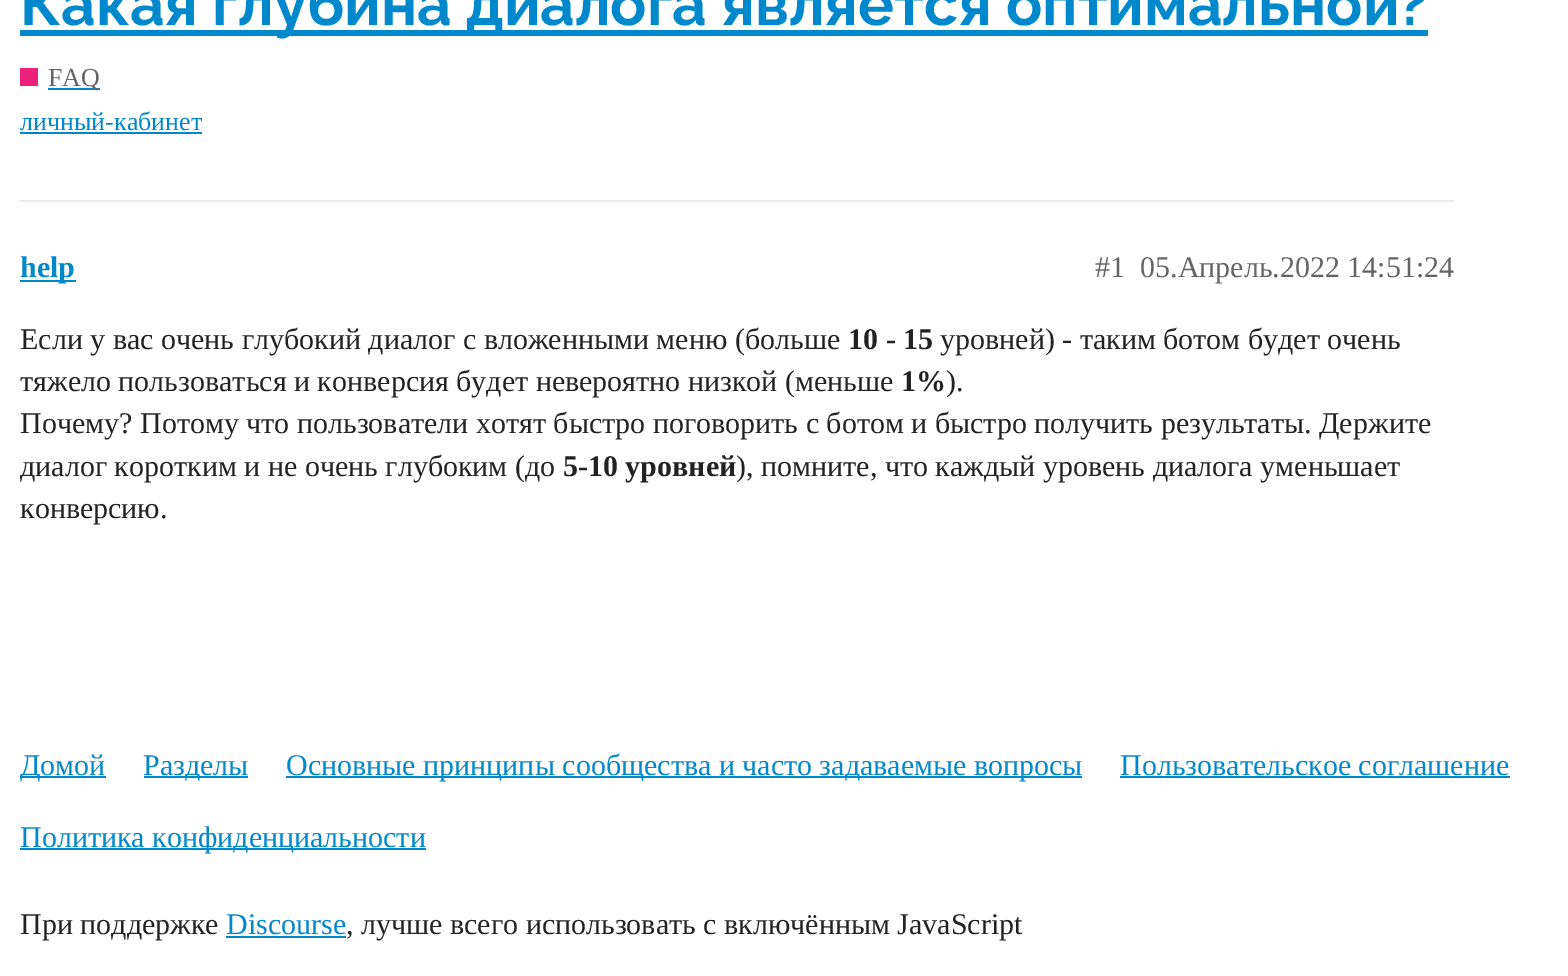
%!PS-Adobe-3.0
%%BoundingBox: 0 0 1568 976
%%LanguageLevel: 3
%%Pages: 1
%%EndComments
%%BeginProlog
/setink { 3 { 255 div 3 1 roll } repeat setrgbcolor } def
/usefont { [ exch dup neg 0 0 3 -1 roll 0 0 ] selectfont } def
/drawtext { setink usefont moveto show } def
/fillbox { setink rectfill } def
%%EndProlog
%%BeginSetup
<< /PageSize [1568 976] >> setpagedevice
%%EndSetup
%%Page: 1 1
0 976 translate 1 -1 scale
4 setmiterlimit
0 0 1568 976 255 255 255 fillbox
20 30 1408 6 0 136 204 fillbox
(Какая глубина диалога является оптимальной?) 20 25 /Raleway-Bold 60 0 136 204 drawtext
20 68 18 18 237 32 123 fillbox
48 88 52 2 0 136 204 fillbox
(FAQ) 48 86 /LiberationSerif-Regular 26 100 100 100 drawtext
gsave
20 104 182 36 rectclip
(личный-кабинет) 20 130 /LiberationSerif-Regular 26 0 136 204 drawtext
grestore
20 132 182 2 0 136 204 fillbox
20 200 1434 2 233 233 233 fillbox
20 280 56 2 0 136 204 fillbox
(help) 20 277 /LiberationSerif-Bold 30 0 136 204 drawtext
(#1) 1095 277 /LiberationSerif-Regular 30 100 100 100 drawtext
(05.Апрель.2022 14:51:24) 1140 277 /LiberationSerif-Regular 30 100 100 100 drawtext
(Если у вас очень глубокий диалог с вложенными меню \(больше) 20 349 /LiberationSerif-Regular 30 34 34 34 drawtext
(10 - 15) 848 349 /LiberationSerif-Bold 30 34 34 34 drawtext
(уровней\) - таким ботом будет очень) 940 349 /LiberationSerif-Regular 30 34 34 34 drawtext
(тяжело пользоваться и конверсия будет невероятно низкой \(меньше) 20 391 /LiberationSerif-Regular 30 34 34 34 drawtext
(1%) 901 391 /LiberationSerif-Bold 30 34 34 34 drawtext
(\).) 946 391 /LiberationSerif-Regular 30 34 34 34 drawtext
(Почему? Потому что пользователи хотят быстро поговорить с ботом и быстро получить результаты. Держите) 20 433 /LiberationSerif-Regular 30 34 34 34 drawtext
(диалог коротким и не очень глубоким \(до) 20 476 /LiberationSerif-Regular 30 34 34 34 drawtext
(5-10 уровней) 563 476 /LiberationSerif-Bold 30 34 34 34 drawtext
(\), помните, что каждый уровень диалога уменьшает) 736 476 /LiberationSerif-Regular 30 34 34 34 drawtext
(конверсию.) 20 518 /LiberationSerif-Regular 30 34 34 34 drawtext
20 776 86 2 0 136 204 fillbox
(Домой) 20 775 /LiberationSerif-Regular 30 0 136 204 drawtext
144 776 104 2 0 136 204 fillbox
(Разделы) 143 775 /LiberationSerif-Regular 30 0 136 204 drawtext
286 776 796 2 0 136 204 fillbox
(Основные принципы сообщества и часто задаваемые вопросы) 286 775 /LiberationSerif-Regular 30 0 136 204 drawtext
(Пользовательское соглашение) 1120 775 /LiberationSerif-Regular 30 0 136 204 drawtext
1120 776 390 2 0 136 204 fillbox
20 848 406 2 0 136 204 fillbox
(Политика конфиденциальности) 20 847 /LiberationSerif-Regular 30 0 136 204 drawtext
(При поддержке) 20 934 /LiberationSerif-Regular 30 34 34 34 drawtext
(Discourse) 226 934 /LiberationSerif-Regular 30 0 136 204 drawtext
226 936 120 2 0 136 204 fillbox
(, лучше всего использовать с включённым JavaScript) 346 934 /LiberationSerif-Regular 30 34 34 34 drawtext
showpage
%%EOF
